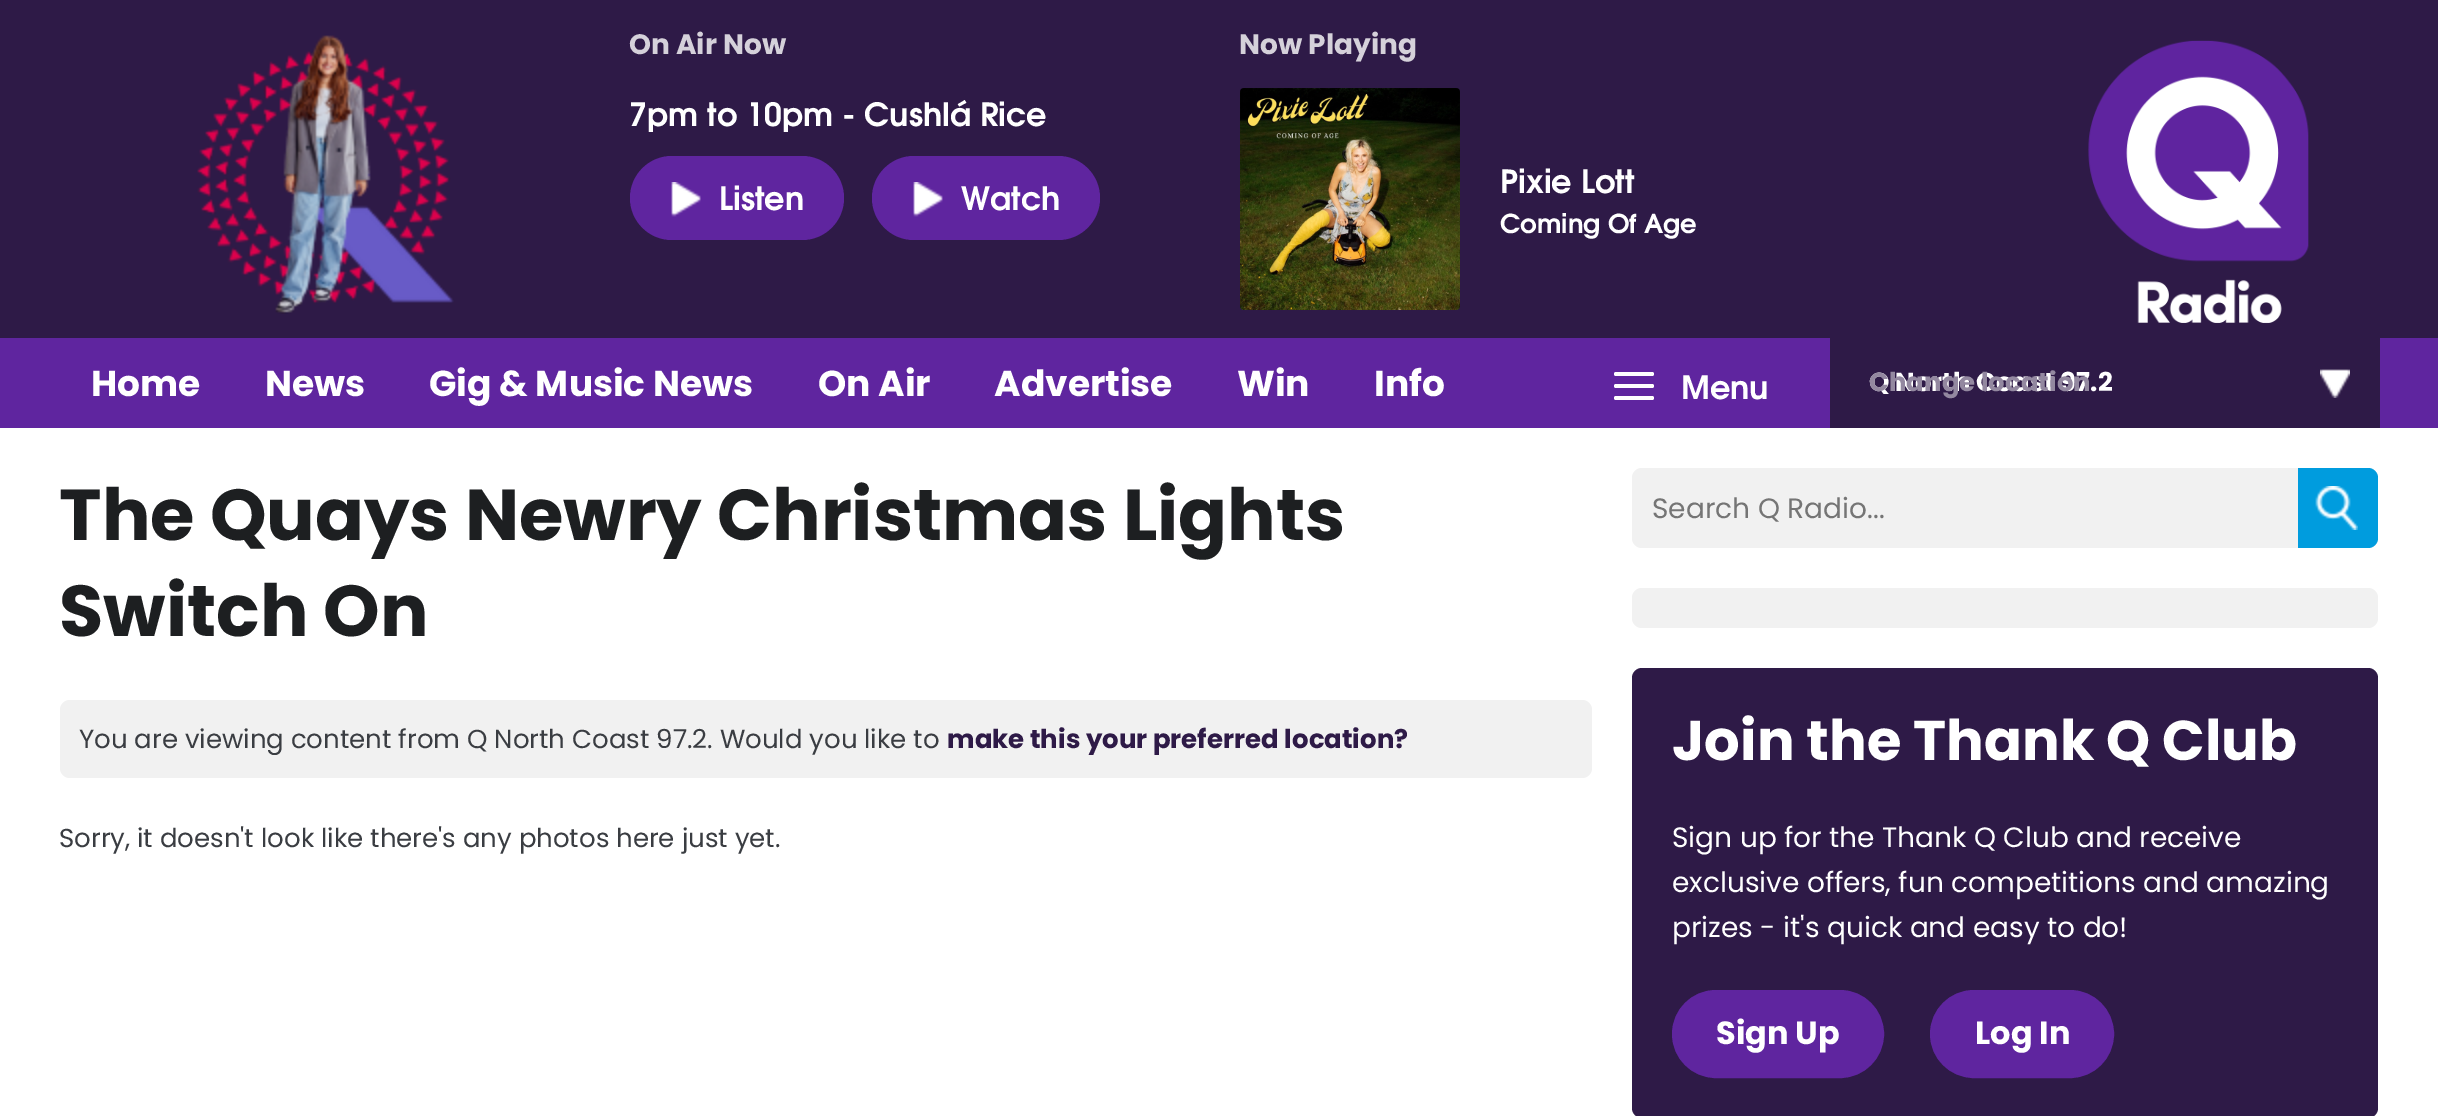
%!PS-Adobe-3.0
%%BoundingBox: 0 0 2438 1116
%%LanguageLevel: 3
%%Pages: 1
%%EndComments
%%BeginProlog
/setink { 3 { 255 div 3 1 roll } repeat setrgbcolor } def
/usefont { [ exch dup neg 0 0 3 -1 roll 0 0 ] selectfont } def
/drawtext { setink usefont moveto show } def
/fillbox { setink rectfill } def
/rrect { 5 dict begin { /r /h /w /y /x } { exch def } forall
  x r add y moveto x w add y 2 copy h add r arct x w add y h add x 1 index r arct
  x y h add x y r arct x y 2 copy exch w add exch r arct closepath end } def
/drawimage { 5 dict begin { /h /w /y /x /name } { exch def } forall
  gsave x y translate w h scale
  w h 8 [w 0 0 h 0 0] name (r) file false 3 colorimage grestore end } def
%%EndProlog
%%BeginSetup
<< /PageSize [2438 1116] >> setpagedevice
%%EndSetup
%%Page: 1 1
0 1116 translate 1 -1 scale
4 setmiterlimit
0 0 2438 1116 255 255 255 fillbox
0 0 2438 338 46 26 71 fillbox
(assets/img1.rgb) 197 35 257 279 drawimage
(On Air Now) 629 54 /Poppins-Bold 28 213 209 218 drawtext
(7pm to 10pm - Cushlá Rice) 629 126 /TeXGyreAdventor-Bold 32 255 255 255 drawtext
95 37 159 setink
630 156 214 84 42 rrect fill
(assets/img2.rgb) 671 182 30 35 drawimage
(Listen) 719 210 /TeXGyreAdventor-Bold 32 255 255 255 drawtext
95 37 159 setink
872 156 228 84 42 rrect fill
(assets/img2.rgb) 913 182 30 35 drawimage
(Watch) 961 210 /TeXGyreAdventor-Bold 32 255 255 255 drawtext
(Now Playing) 1239 54 /Poppins-Bold 28 213 209 218 drawtext
(assets/img3.rgb) 1240 88 220 222 drawimage
(Pixie Lott) 1500 193 /TeXGyreAdventor-Bold 32 255 255 255 drawtext
(Coming Of Age) 1500 233 /TeXGyreAdventor-Bold 26 255 255 255 drawtext
(assets/img4.rgb) 2088 40 221 284 drawimage
0 338 2438 90 95 37 159 fillbox
(Home) 91 396 /Poppins-Bold 36 255 255 255 drawtext
(News) 265 396 /Poppins-Bold 36 255 255 255 drawtext
(Gig & Music News) 429 396 /Poppins-Bold 36 255 255 255 drawtext
(On Air) 818 396 /Poppins-Bold 36 255 255 255 drawtext
(Advertise) 994 396 /Poppins-Bold 36 255 255 255 drawtext
(Win) 1237 396 /Poppins-Bold 36 255 255 255 drawtext
(Info) 1374 396 /Poppins-Bold 36 255 255 255 drawtext
1614 372 40 4 2 rrect fill
1614 384 40 4 2 rrect fill
1614 396 40 4 2 rrect fill
(Menu) 1681 399 /TeXGyreAdventor-Bold 32 255 255 255 drawtext
1830 338 550 90 46 26 71 fillbox
(Q North Coast 97.2) 1869 391 /Poppins-Bold 26 255 255 255 drawtext
(Change location) 1869 391 /Poppins-Bold 26 147 136 160 drawtext
(assets/img5.rgb) 2320 369 30 29 drawimage
(The Quays Newry Christmas Lights) 59 540 /Poppins-Bold 72 29 31 33 drawtext
(Switch On) 59 636 /Poppins-Bold 72 29 31 33 drawtext
241 241 241 setink
60 700 1532 78 10 rrect fill
(You are viewing content from Q North Coast 97.2. Would you like to) 79 748 /Poppins-Regular 26 58 61 66 drawtext
(make this your preferred location?) 947 748 /Poppins-Bold 26 46 26 71 drawtext
(Sorry, it doesn't look like there's any photos here just yet.) 59 847 /Poppins-Regular 26 58 61 66 drawtext
241 241 241 setink
1632 468 746 80 10 rrect fill
(Search Q Radio...) 1652 518 /Poppins-Regular 28 117 117 117 drawtext
0 156 222 setink
2298 468 moveto 2368 468 lineto 2373.5 468 2378 472.5 2378 478 curveto 2378 538 lineto 2378 543.5 2373.5 548 2368 548 curveto 2298 548 lineto closepath fill
(assets/img6.rgb) 2315 486 43 44 drawimage
241 241 241 setink
1632 588 746 40 10 rrect fill
46 26 71 setink
1632 668 746 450 10 rrect fill
(Join the Thank Q Club) 1672 760 /Poppins-Bold 56 255 255 255 drawtext
(Sign up for the Thank Q Club and receive) 1672 847 /Poppins-Regular 28 255 255 255 drawtext
(exclusive offers, fun competitions and amazing) 1672 892 /Poppins-Regular 28 255 255 255 drawtext
(prizes - it's quick and easy to do!) 1672 937 /Poppins-Regular 28 255 255 255 drawtext
95 37 159 setink
1674 992 208 84 42 rrect gsave fill grestore
4 setlinewidth
stroke
(Sign Up) 1716 1044 /Poppins-Bold 32 255 255 255 drawtext
95 37 159 setink
1932 992 180 84 42 rrect gsave fill grestore
stroke
(Log In) 1975 1044 /Poppins-Bold 32 255 255 255 drawtext
showpage
%%EOF
